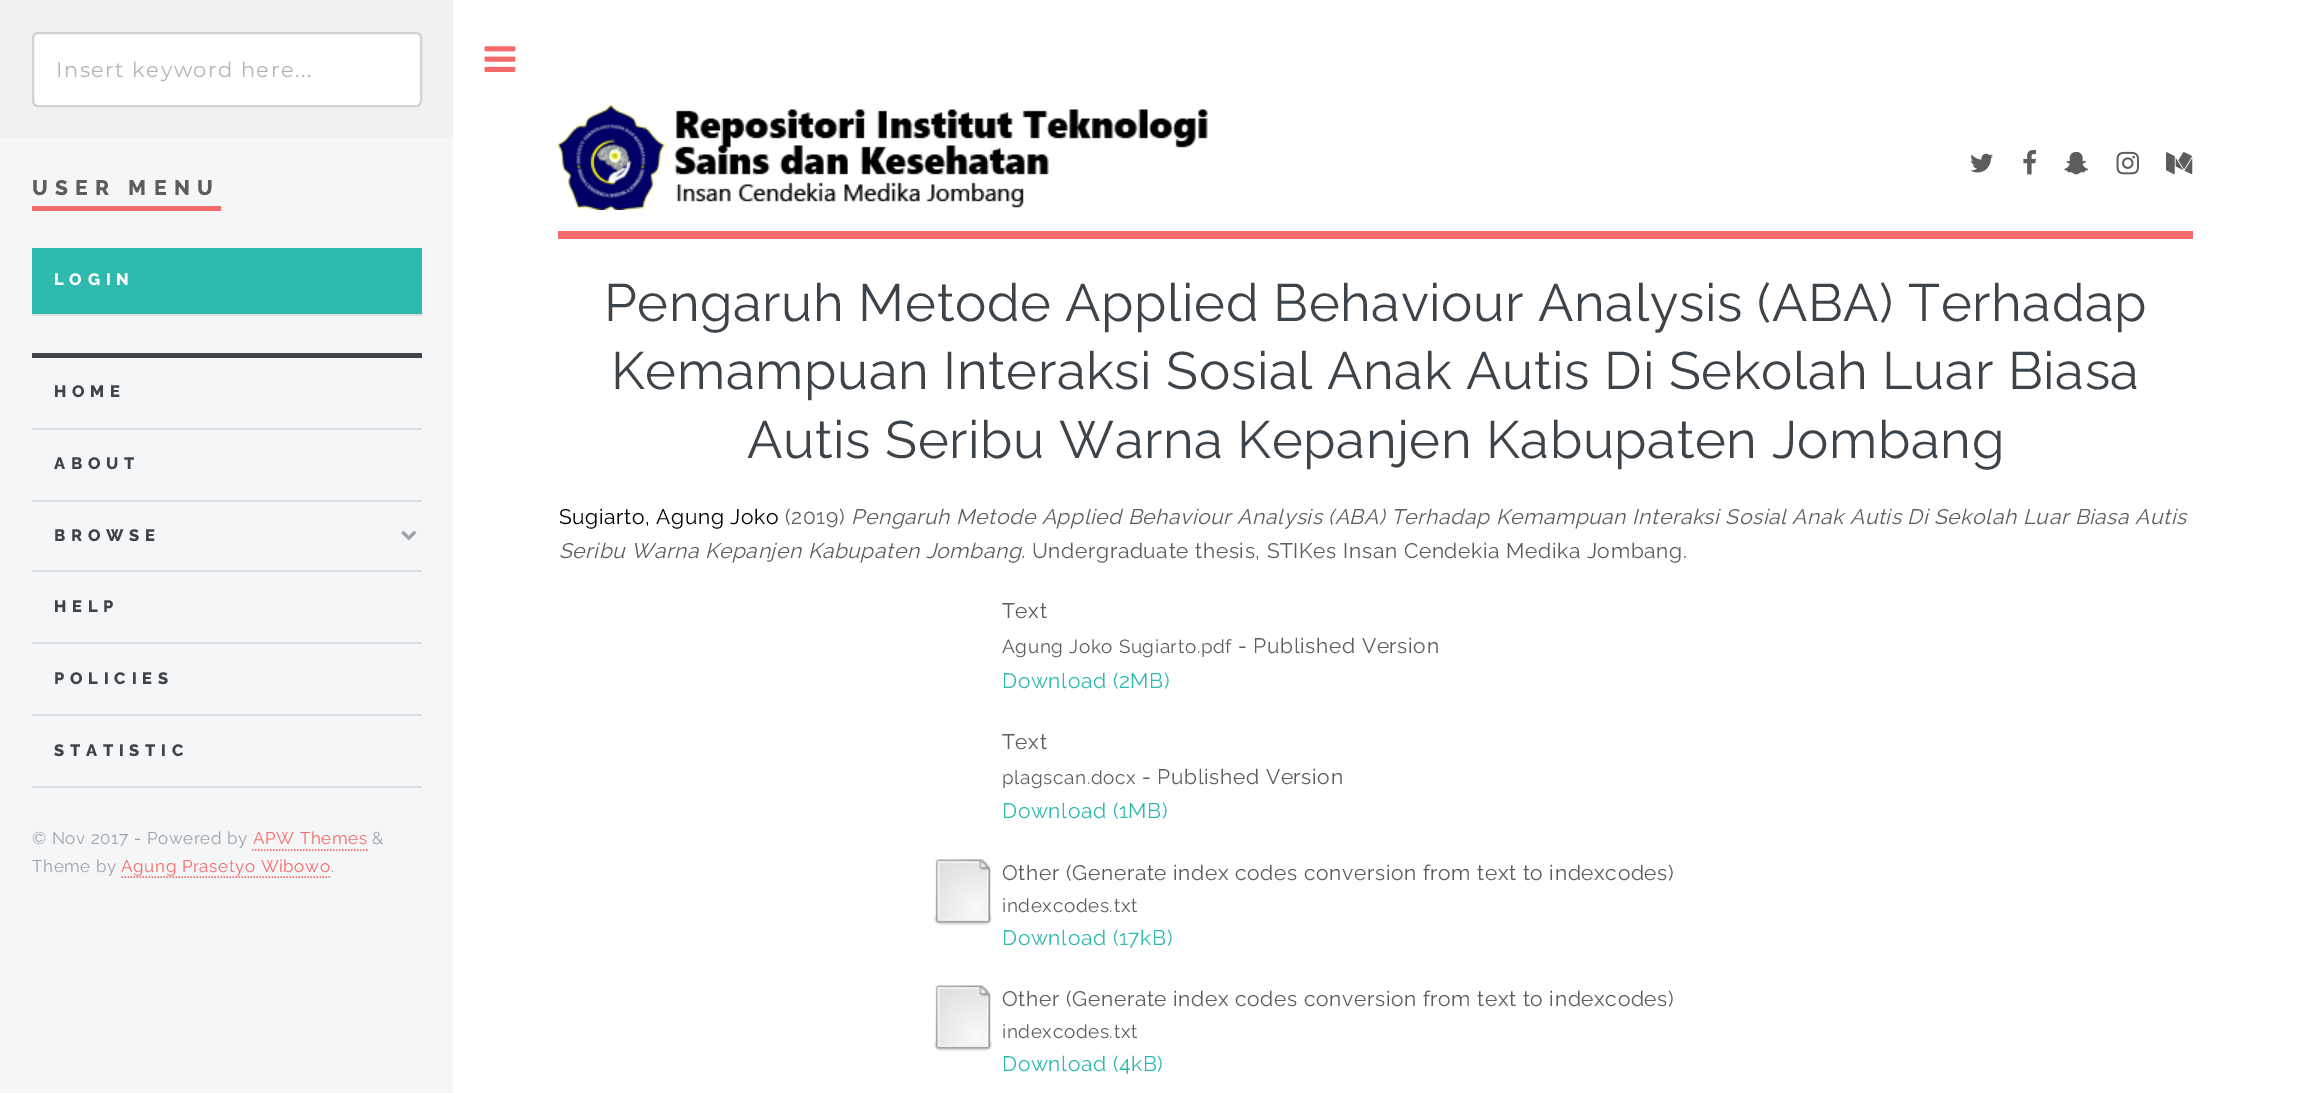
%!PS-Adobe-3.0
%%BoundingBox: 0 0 2297 1093
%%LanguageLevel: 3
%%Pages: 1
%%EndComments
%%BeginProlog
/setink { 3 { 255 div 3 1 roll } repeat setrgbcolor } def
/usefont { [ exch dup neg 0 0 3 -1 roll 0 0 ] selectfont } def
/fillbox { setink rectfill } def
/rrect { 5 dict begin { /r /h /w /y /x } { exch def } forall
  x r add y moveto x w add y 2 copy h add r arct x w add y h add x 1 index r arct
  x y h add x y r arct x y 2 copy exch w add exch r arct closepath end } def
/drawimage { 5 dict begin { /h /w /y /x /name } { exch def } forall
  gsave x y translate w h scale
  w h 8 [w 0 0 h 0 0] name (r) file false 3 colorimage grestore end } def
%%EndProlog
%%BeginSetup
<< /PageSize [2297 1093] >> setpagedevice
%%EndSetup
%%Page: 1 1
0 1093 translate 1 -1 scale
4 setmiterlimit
0 0 2297 1093 255 255 255 fillbox
0 138 453 955 245 246 247 fillbox
0 0 453 138 239 241 242 fillbox
255 255 255 setink
33 33 388 73 5 rrect gsave fill grestore
210 210 210 setink
2 setlinewidth
stroke
/Montserrat-Regular 21 usefont
181 181 181 setink
56 77 moveto 1.5 0 (Insert keyword here...) ashow
32 206 189 5 245 106 106 fillbox
/Raleway-ExtraBold 21 usefont
93 93 93 setink
32 195 moveto 7.25 0 (USER MENU) ashow
32 248 390 66 46 186 174 fillbox
32 314 390 2 219 223 225 fillbox
/Raleway-ExtraBold 16.5 usefont
255 255 255 setink
54 285 moveto 5.75 0 (LOGIN) ashow
32 353 390 5 61 68 73 fillbox
54 397 moveto 5.75 0 (HOME) ashow
32 428 390 2 219 223 225 fillbox
61 68 73 setink
54 469 moveto 5.75 0 (ABOUT) ashow
32 500 390 2 219 223 225 fillbox
61 68 73 setink
54 541 moveto 5.75 0 (BROWSE) ashow
(assets/img1.rgb) 401 530 16 11 drawimage
32 570 390 2 219 223 225 fillbox
61 68 73 setink
54 612 moveto 5.75 0 (HELP) ashow
32 642 390 2 219 223 225 fillbox
61 68 73 setink
54 684 moveto 5.75 0 (POLICIES) ashow
32 714 390 2 219 223 225 fillbox
32 786 390 2 219 223 225 fillbox
61 68 73 setink
54 756 moveto 5.75 0 (STATISTIC) ashow
/Raleway-Regular 17 usefont
159 163 166 setink
32 844 moveto 0.63 0 (© Nov 2017 - Powered by) ashow
245 106 106 setink
253 844 moveto 0.63 0 (APW Themes) ashow
1.5 setlinewidth
[1.5 1.5] 0 setdash
252 850 moveto 367.5 850 lineto stroke
159 163 166 setink
372 844 moveto 0.63 0 (&) ashow
32 872 moveto 0.63 0 (Theme by) ashow
245 106 106 setink
121 872 moveto 0.63 0 (Agung Prasetyo Wibowo) ashow
121.5 877 moveto 331.5 877 lineto stroke
159 163 166 setink
331 872 moveto 0.63 0 (.) ashow
(assets/img2.rgb) 484 46 32 26 drawimage
558 231 1635 8 245 106 106 fillbox
(assets/img3.rgb) 558 105 650 105 drawimage
(assets/img4.rgb) 1970 153 23 20 drawimage
(assets/img5.rgb) 2023 150 14 25 drawimage
(assets/img6.rgb) 2064 151 25 24 drawimage
(assets/img7.rgb) 2116 151 23 24 drawimage
(assets/img8.rgb) 2166 152 27 23 drawimage
/Raleway-Regular 52.5 usefont
61 68 73 setink
604 321 moveto 0.63 0 (Pengaruh Metode Applied Behaviour Analysis \(ABA\) Terhadap) ashow
611 389 moveto 0.63 0 (Kemampuan Interaksi Sosial Anak Autis Di Sekolah Luar Biasa) ashow
747 458 moveto 0.63 0 (Autis Seribu Warna Kepanjen Kabupaten Jombang) ashow
/Raleway-Regular 21 usefont
0 0 0 setink
559 524 moveto 0.63 0 (Sugiarto, Agung Joko) ashow
93 93 93 setink
785 524 moveto 0.63 0 (\(2019\)) ashow
/Raleway-Italic 21 usefont
851 524 moveto 0.63 0 (Pengaruh Metode Applied Behaviour Analysis \(ABA\) Terhadap Kemampuan Interaksi Sosial Anak Autis Di Sekolah Luar Biasa Autis) ashow
559 558 moveto 0.63 0 (Seribu Warna Kepanjen Kabupaten Jombang.) ashow
/Raleway-Regular 21 usefont
1032 558 moveto 0.63 0 (Undergraduate thesis, STIKes Insan Cendekia Medika Jombang.) ashow
1002 618 moveto 0.63 0 (Text) ashow
/Raleway-Regular 18.9 usefont
1002 653 moveto 0.63 0 (Agung Joko Sugiarto.pdf) ashow
/Raleway-Regular 21 usefont
1238 653 moveto 0.63 0 (- Published Version) ashow
46 186 174 setink
1002 688 moveto 0.63 0 (Download \(2MB\)) ashow
93 93 93 setink
1002 749 moveto 0.63 0 (Text) ashow
/Raleway-Regular 18.9 usefont
1002 784 moveto 0.63 0 (plagscan.docx) ashow
/Raleway-Regular 21 usefont
1142 784 moveto 0.63 0 (- Published Version) ashow
46 186 174 setink
1002 818 moveto 0.63 0 (Download \(1MB\)) ashow
(assets/img9.rgb) 933 859 60 67 drawimage
93 93 93 setink
1002 880 moveto 0.63 0 (Other \(Generate index codes conversion from text to indexcodes\)) ashow
/Raleway-Regular 18.9 usefont
1002 912 moveto 0.63 0 (indexcodes.txt) ashow
/Raleway-Regular 21 usefont
46 186 174 setink
1002 945 moveto 0.63 0 (Download \(17kB\)) ashow
(assets/img9.rgb) 933 985 60 67 drawimage
93 93 93 setink
1002 1006 moveto 0.63 0 (Other \(Generate index codes conversion from text to indexcodes\)) ashow
/Raleway-Regular 18.9 usefont
1002 1038 moveto 0.63 0 (indexcodes.txt) ashow
/Raleway-Regular 21 usefont
46 186 174 setink
1002 1071 moveto 0.63 0 (Download \(4kB\)) ashow
showpage
%%EOF
